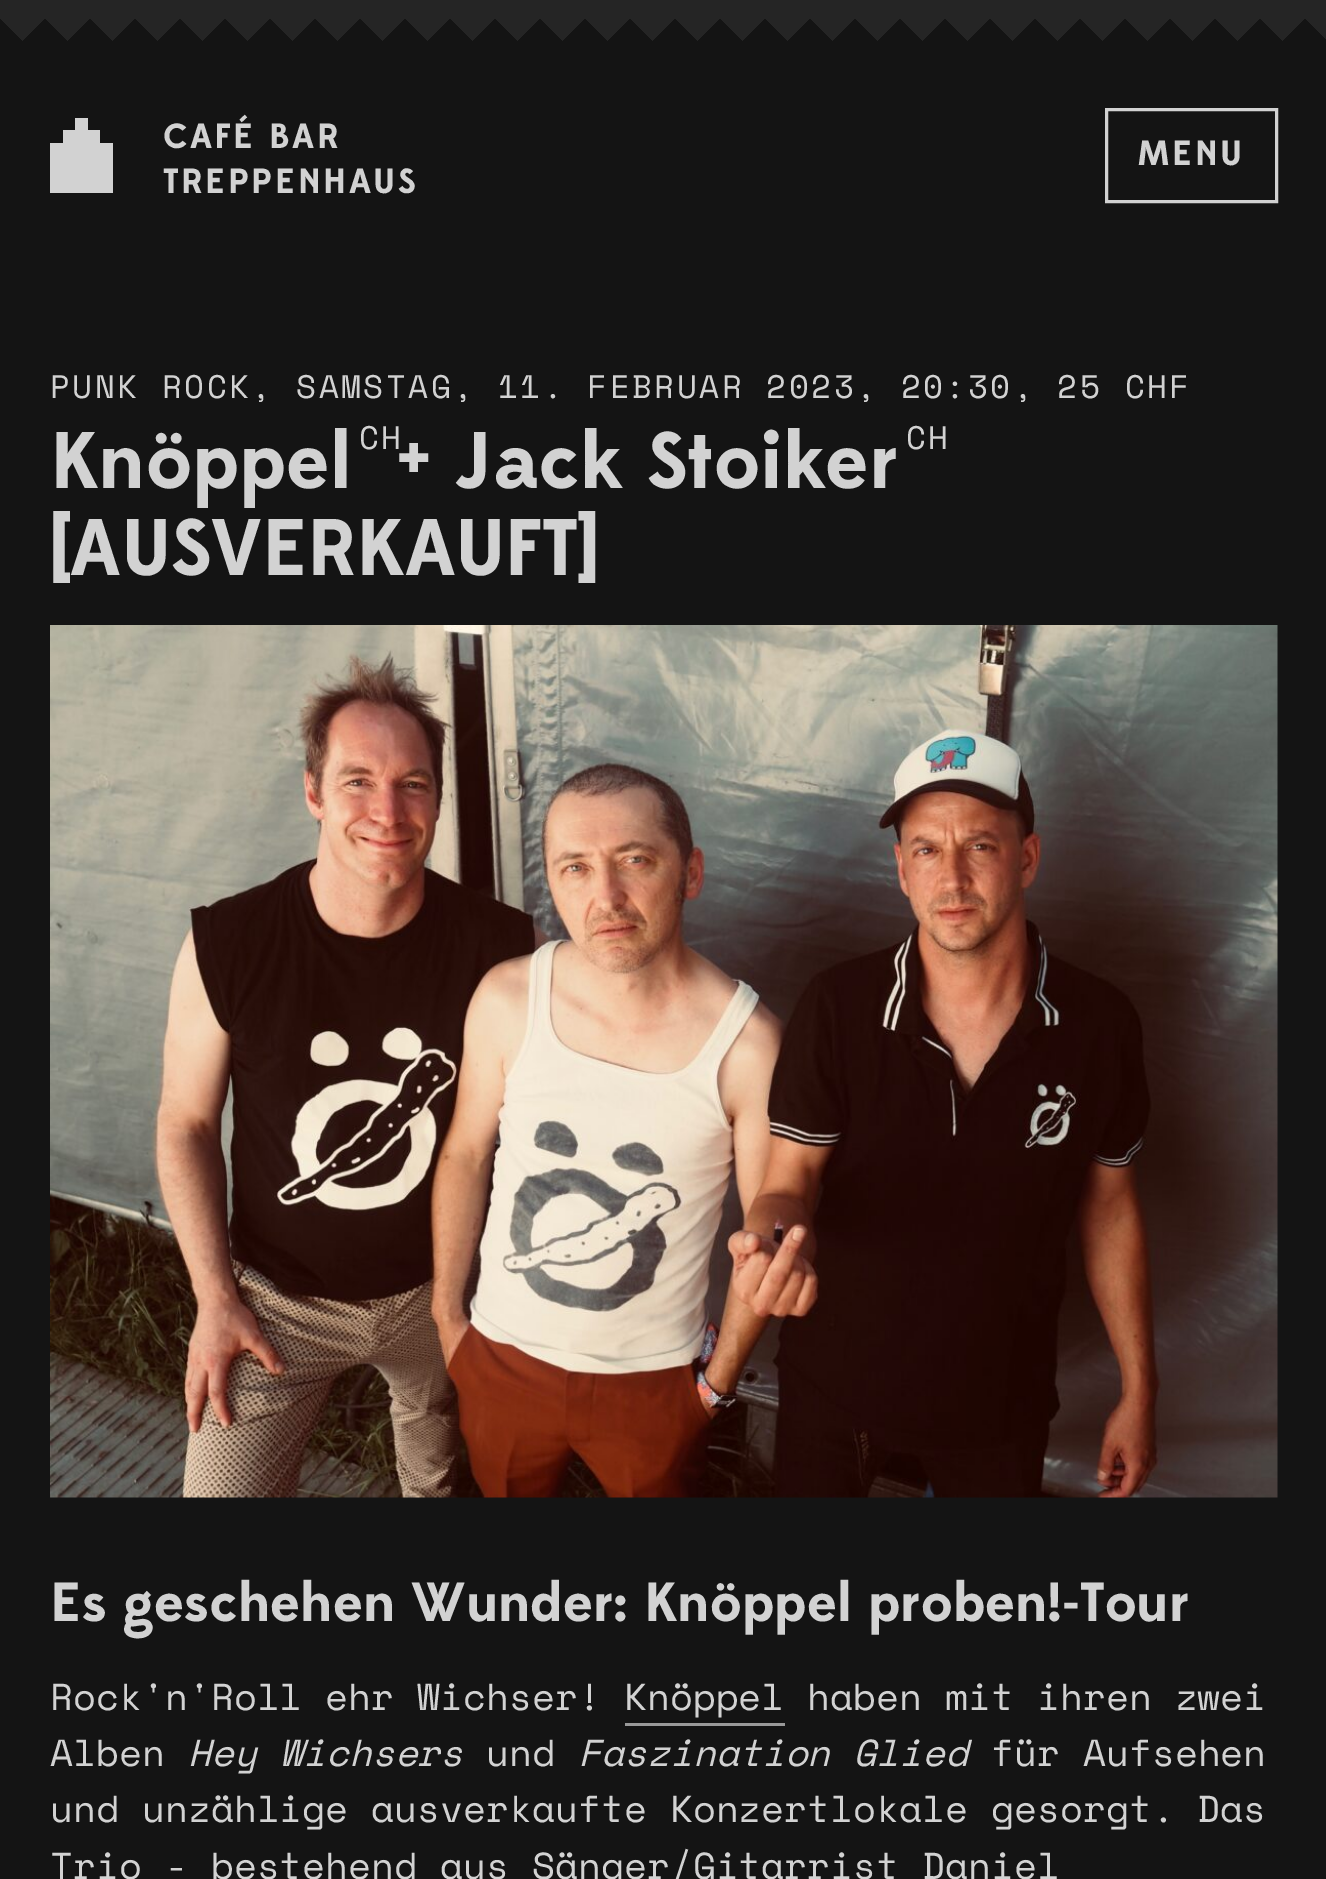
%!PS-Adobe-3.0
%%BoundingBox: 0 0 1326 1879
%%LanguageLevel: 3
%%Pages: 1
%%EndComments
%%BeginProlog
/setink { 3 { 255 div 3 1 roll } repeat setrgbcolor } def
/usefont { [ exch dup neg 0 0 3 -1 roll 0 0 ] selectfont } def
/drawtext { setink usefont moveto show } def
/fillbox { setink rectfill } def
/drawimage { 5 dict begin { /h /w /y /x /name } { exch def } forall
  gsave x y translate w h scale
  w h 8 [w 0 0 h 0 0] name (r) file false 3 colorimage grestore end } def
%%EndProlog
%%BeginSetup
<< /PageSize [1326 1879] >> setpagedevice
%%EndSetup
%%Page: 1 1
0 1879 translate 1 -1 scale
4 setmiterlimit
0 0 1326 1879 20 20 20 fillbox
0 0 1326 41 37 37 37 fillbox
(assets/img1.rgb) 23 19 1282 26 drawimage
(assets/img2.rgb) 0 19 1326 26 drawimage
75 118 13 12 210 210 210 fillbox
63 130 37 13 210 210 210 fillbox
50 143 63 50 210 210 210 fillbox
/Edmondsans-Bold 35 usefont
163 148 moveto 2.5 0 (CAFÉ BAR) ashow
163 193 moveto 2.5 0 (TREPPENHAUS) ashow
3 setlinewidth
1106.5 109.5 170 92 rectstroke
1137 165 moveto 2.5 0 (MENU) ashow
/SpaceMono-Regular 32.5 usefont
50 398 moveto 2.5 0 (PUNK ROCK, SAMSTAG, 11. FEBRUAR 2023, 20:30, 25 CHF) ashow
(Knöppel) 50 488 /Edmondsans-Bold 80 210 210 210 drawtext
/SpaceMono-Regular 32.5 usefont
359 449 moveto 2.5 0 (CH) ashow
(+ Jack Stoiker) 396 488 /Edmondsans-Bold 80 210 210 210 drawtext
/SpaceMono-Regular 32.5 usefont
906 449 moveto 2.5 0 (CH) ashow
([AUSVERKAUFT]) 50 575 /Edmondsans-Bold 80 210 210 210 drawtext
(assets/img3.rgb) 50 625 1228 873 drawimage
(Es geschehen Wunder: Knöppel proben!-Tour) 50 1621 /Edmondsans-Bold 55 210 210 210 drawtext
(Rock'n'Roll ehr Wichser! Knöppel haben mit ihren zwei) 50 1710 /SpaceMono-Regular 37.5 210 210 210 drawtext
625 1723 160 3 153 153 153 fillbox
(Alben) 50 1766 /SpaceMono-Regular 37.5 210 210 210 drawtext
(Hey Wichsers) 188 1766 /SpaceMono-Italic 37.5 210 210 210 drawtext
(und) 486 1766 /SpaceMono-Regular 37.5 210 210 210 drawtext
(Faszination Glied) 578 1766 /SpaceMono-Italic 37.5 210 210 210 drawtext
(für Aufsehen) 991 1766 /SpaceMono-Regular 37.5 210 210 210 drawtext
(und unzählige ausverkaufte Konzertlokale gesorgt. Das) 50 1822 /SpaceMono-Regular 37.5 210 210 210 drawtext
(Trio - bestehend aus Sänger/Gitarrist Daniel) 50 1879 /SpaceMono-Regular 37.5 210 210 210 drawtext
showpage
%%EOF
